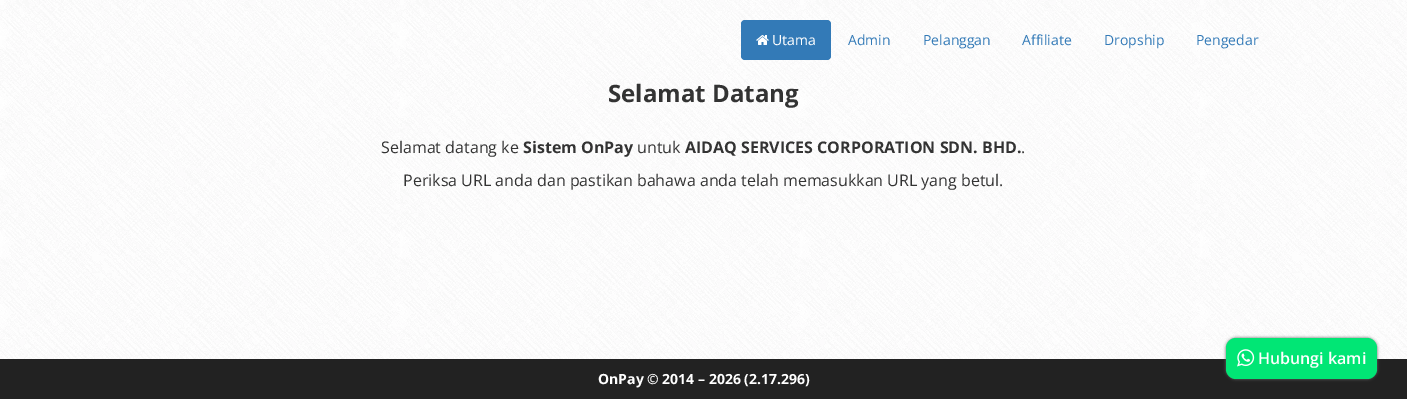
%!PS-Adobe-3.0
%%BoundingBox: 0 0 1407 399
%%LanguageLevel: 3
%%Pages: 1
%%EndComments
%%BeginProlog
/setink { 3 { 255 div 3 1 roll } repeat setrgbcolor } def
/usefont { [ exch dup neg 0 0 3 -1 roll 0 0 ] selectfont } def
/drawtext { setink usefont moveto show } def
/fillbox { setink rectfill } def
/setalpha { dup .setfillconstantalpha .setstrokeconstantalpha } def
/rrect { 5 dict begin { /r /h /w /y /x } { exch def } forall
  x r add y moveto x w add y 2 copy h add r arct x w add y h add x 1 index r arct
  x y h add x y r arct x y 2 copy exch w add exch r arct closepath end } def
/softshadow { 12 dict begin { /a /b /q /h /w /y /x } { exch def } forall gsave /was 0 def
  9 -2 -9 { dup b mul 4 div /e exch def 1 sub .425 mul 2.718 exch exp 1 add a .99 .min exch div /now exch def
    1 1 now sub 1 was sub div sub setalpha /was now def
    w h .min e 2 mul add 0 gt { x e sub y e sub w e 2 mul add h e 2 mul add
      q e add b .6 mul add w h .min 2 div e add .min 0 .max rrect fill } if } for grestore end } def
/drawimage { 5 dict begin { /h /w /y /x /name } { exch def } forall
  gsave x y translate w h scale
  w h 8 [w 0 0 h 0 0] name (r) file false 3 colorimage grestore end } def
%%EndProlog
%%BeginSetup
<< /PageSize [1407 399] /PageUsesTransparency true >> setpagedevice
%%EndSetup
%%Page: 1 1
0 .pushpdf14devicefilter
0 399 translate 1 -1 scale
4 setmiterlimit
0 0 1407 399 255 255 255 fillbox
(assets/img1.rgb) 0 0 1407 359 drawimage
51 122 183 setink
741 20 90 40 4 rrect fill
(assets/img2.rgb) 756 35 13 10 drawimage
(Utama) 772 45 /OpenSans-Regular 14 255 255 255 drawtext
(Admin) 848 45 /OpenSans-Regular 14 51 122 183 drawtext
(Pelanggan) 923 45 /OpenSans-Regular 14 51 122 183 drawtext
(Affiliate) 1022 45 /OpenSans-Regular 14 51 122 183 drawtext
(Dropship) 1104 45 /OpenSans-Regular 14 51 122 183 drawtext
(Pengedar) 1196 45 /OpenSans-Regular 14 51 122 183 drawtext
(Selamat Datang) 608 102 /OpenSans-Bold 24 51 51 51 drawtext
(Selamat datang ke) 381 153 /OpenSans-Regular 16 51 51 51 drawtext
(Sistem OnPay) 523 153 /OpenSans-Bold 16 51 51 51 drawtext
(untuk) 637 153 /OpenSans-Regular 16 51 51 51 drawtext
(AIDAQ SERVICES CORPORATION SDN. BHD.) 685 153 /OpenSans-Bold 16 51 51 51 drawtext
(.) 1021 153 /OpenSans-Regular 16 51 51 51 drawtext
(Periksa URL anda dan pastikan bahawa anda telah memasukkan URL yang betul.) 403 186 /OpenSans-Regular 16 51 51 51 drawtext
0 359 1407 40 34 34 34 fillbox
102 102 102 setink
1226 338 151 41 10 1.5 1 softshadow
1 230 117 setink
1226 338 151 41 10 rrect fill
(assets/img3.rgb) 1237 349 18 18 drawimage
(Hubungi kami) 1258 364 /OpenSans-SemiBold 16 255 255 255 drawtext
(OnPay © 2014 – 2026 \(2.17.296\)) 598 384 /OpenSans-Bold 14 255 255 255 drawtext
.poppdf14devicefilter showpage
%%EOF
